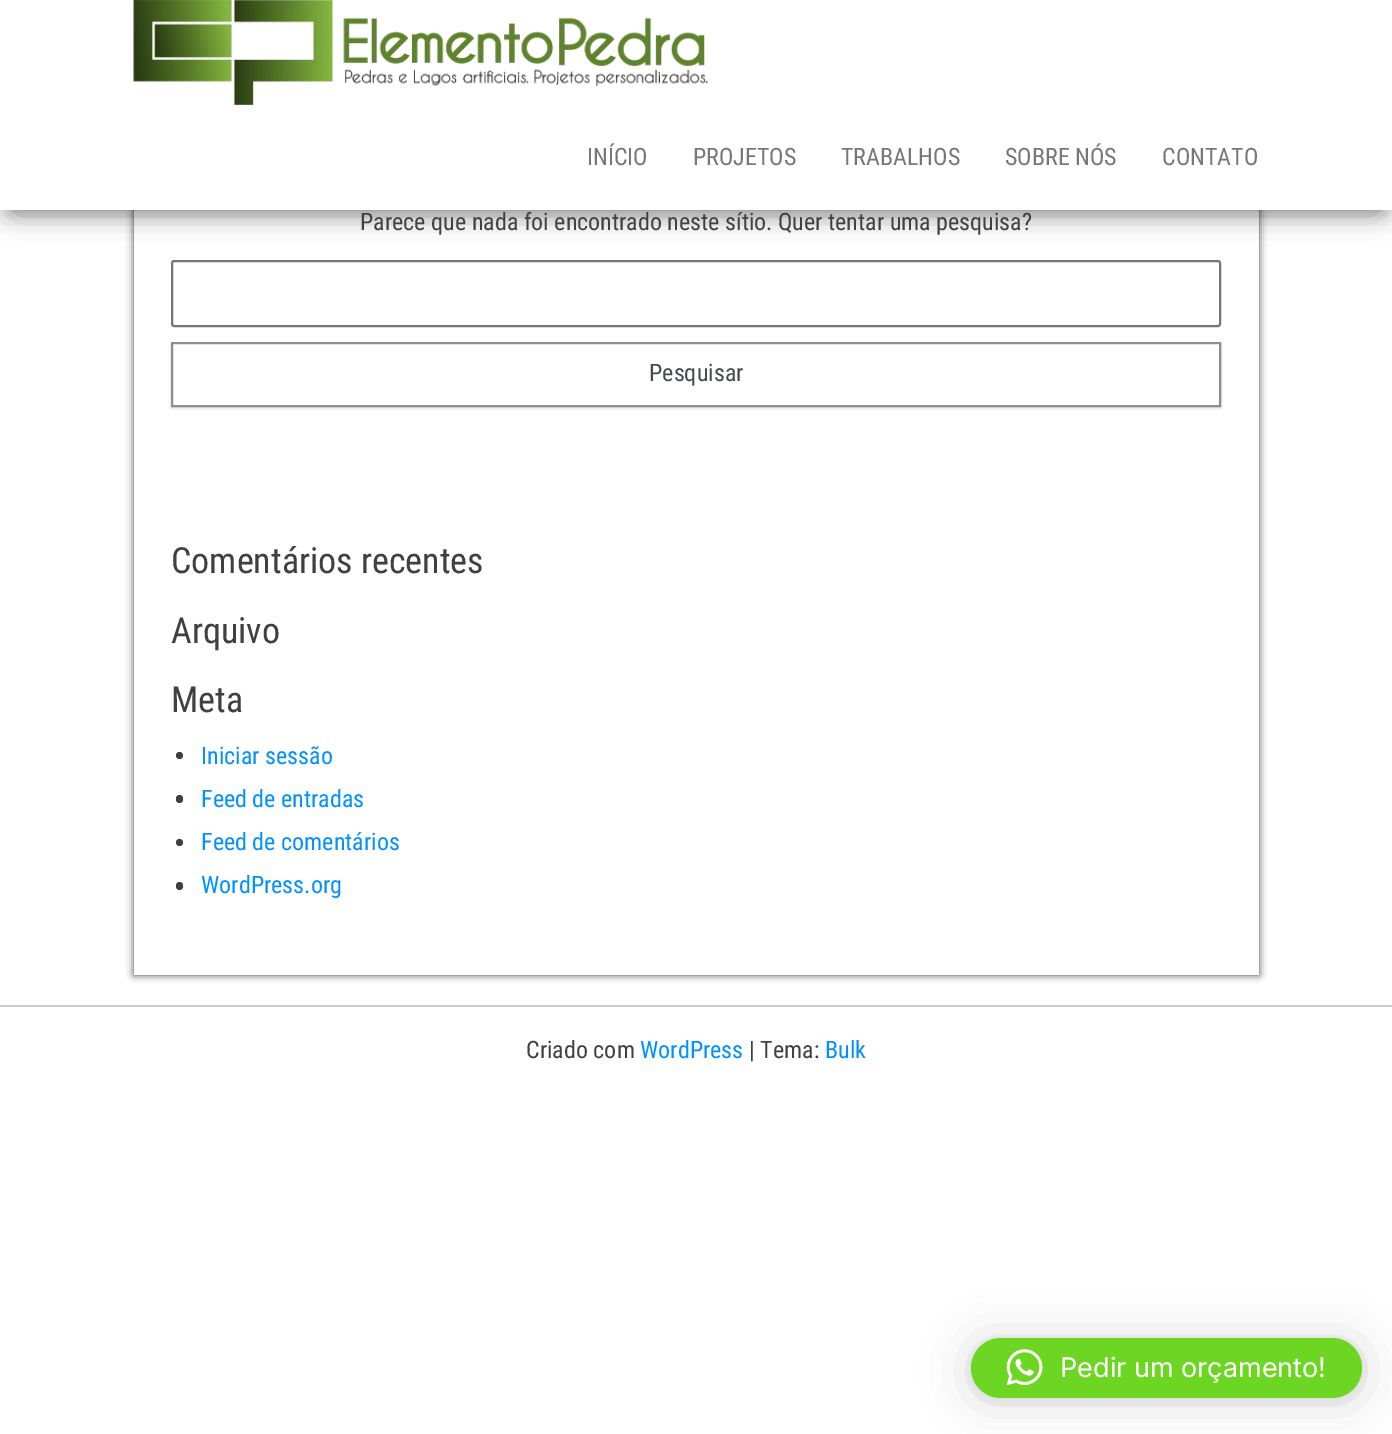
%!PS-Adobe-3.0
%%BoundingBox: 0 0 1392 1434
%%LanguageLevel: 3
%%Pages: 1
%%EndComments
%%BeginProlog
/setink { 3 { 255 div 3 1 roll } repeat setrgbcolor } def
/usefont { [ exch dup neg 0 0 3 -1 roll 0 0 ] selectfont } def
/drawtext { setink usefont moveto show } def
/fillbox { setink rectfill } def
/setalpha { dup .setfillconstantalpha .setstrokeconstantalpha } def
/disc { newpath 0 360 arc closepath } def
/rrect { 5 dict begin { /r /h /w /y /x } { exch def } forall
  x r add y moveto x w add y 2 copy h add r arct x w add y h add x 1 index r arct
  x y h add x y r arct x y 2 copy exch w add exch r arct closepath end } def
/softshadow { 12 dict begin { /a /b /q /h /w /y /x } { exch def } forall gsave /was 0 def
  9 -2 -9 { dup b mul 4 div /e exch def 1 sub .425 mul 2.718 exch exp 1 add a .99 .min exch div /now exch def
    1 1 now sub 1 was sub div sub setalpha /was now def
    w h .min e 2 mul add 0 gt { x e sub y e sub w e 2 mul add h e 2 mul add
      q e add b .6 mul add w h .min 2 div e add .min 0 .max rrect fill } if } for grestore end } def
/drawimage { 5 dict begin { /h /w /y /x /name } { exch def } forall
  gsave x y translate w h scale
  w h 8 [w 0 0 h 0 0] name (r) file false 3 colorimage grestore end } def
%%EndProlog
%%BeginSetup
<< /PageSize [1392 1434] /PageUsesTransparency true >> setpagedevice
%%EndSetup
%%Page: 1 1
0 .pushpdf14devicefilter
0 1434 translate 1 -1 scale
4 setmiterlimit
0 0 1392 1434 255 255 255 fillbox
0 0 0 setink
134 60 1125 915 0 4 0.75 softshadow
134 210 1125 765 255 255 255 fillbox
0 0 0 setink
8 20 1377 195 0 7.5 0.2 softshadow
118 118 118 setink
2 setlinewidth
172 261 1048 65 2 rrect stroke
0 0 0 setink
0 5 1392 210 0 15 0.12 softshadow
18 33 1356 174 0 15 0.42 softshadow
0 0 1392 210 255 255 255 fillbox
(assets/img1.rgb) 133 0 575 105 drawimage
(INÍCIO) 587 165 /RobotoCondensed-Regular 24 119 119 119 drawtext
(PROJETOS) 693 165 /RobotoCondensed-Regular 24 119 119 119 drawtext
(TRABALHOS) 841 165 /RobotoCondensed-Regular 24 119 119 119 drawtext
(SOBRE NÓS) 1005 165 /RobotoCondensed-Regular 24 119 119 119 drawtext
(CONTATO) 1162 165 /RobotoCondensed-Regular 24 119 119 119 drawtext
(Parece que nada foi encontrado neste sítio. Quer tentar uma pesquisa?) 360 230 /RobotoCondensed-Regular 24 64 64 64 drawtext
0 0 0 setink
171 344 1050 64 0 1.5 0.15 softshadow
255 255 255 setink
172 343 moveto 1220 343 lineto 1220 406 lineto 172 406 lineto closepath gsave fill grestore
142 142 142 setink
stroke
(Pesquisar) 649 381 /RobotoCondensed-Regular 24 70 74 76 drawtext
(Comentários recentes) 171 573 /RobotoCondensed-Regular 36 64 64 64 drawtext
(Arquivo) 171 643 /RobotoCondensed-Regular 36 64 64 64 drawtext
(Meta) 171 712 /RobotoCondensed-Regular 36 64 64 64 drawtext
179.5 755.5 3.5 disc fill
(Iniciar sessão) 201 764 /RobotoCondensed-Regular 24 0 144 255 drawtext
64 64 64 setink
176 795 7 8 3.5 rrect fill
(Feed de entradas) 201 807 /RobotoCondensed-Regular 24 0 144 255 drawtext
64 64 64 setink
179.5 842.5 3.5 disc fill
(Feed de comentários) 201 850 /RobotoCondensed-Regular 24 0 144 255 drawtext
64 64 64 setink
176 882 7 8 3.5 rrect fill
(WordPress.org) 201 893 /RobotoCondensed-Regular 24 0 144 255 drawtext
0 1005 1392 2 204 204 204 fillbox
(Criado com) 526 1058 /RobotoCondensed-Regular 24 64 64 64 drawtext
(WordPress) 640 1058 /RobotoCondensed-Regular 24 0 144 255 drawtext
(| Tema:) 749 1058 /RobotoCondensed-Regular 24 64 64 64 drawtext
(Bulk) 825 1058 /RobotoCondensed-Regular 24 0 144 255 drawtext
0 0 0 setink
971 1341 391 60 30 24 0.16 softshadow
971 1340 391 60 30 4.5 0.06 softshadow
109 214 34 setink
971 1338 391 60 30 rrect fill
(assets/img2.rgb) 1006 1349 37 37 drawimage
(Pedir um orçamento!) 1060 1377 /Inter-Regular 27 255 255 255 drawtext
.poppdf14devicefilter showpage
%%EOF
